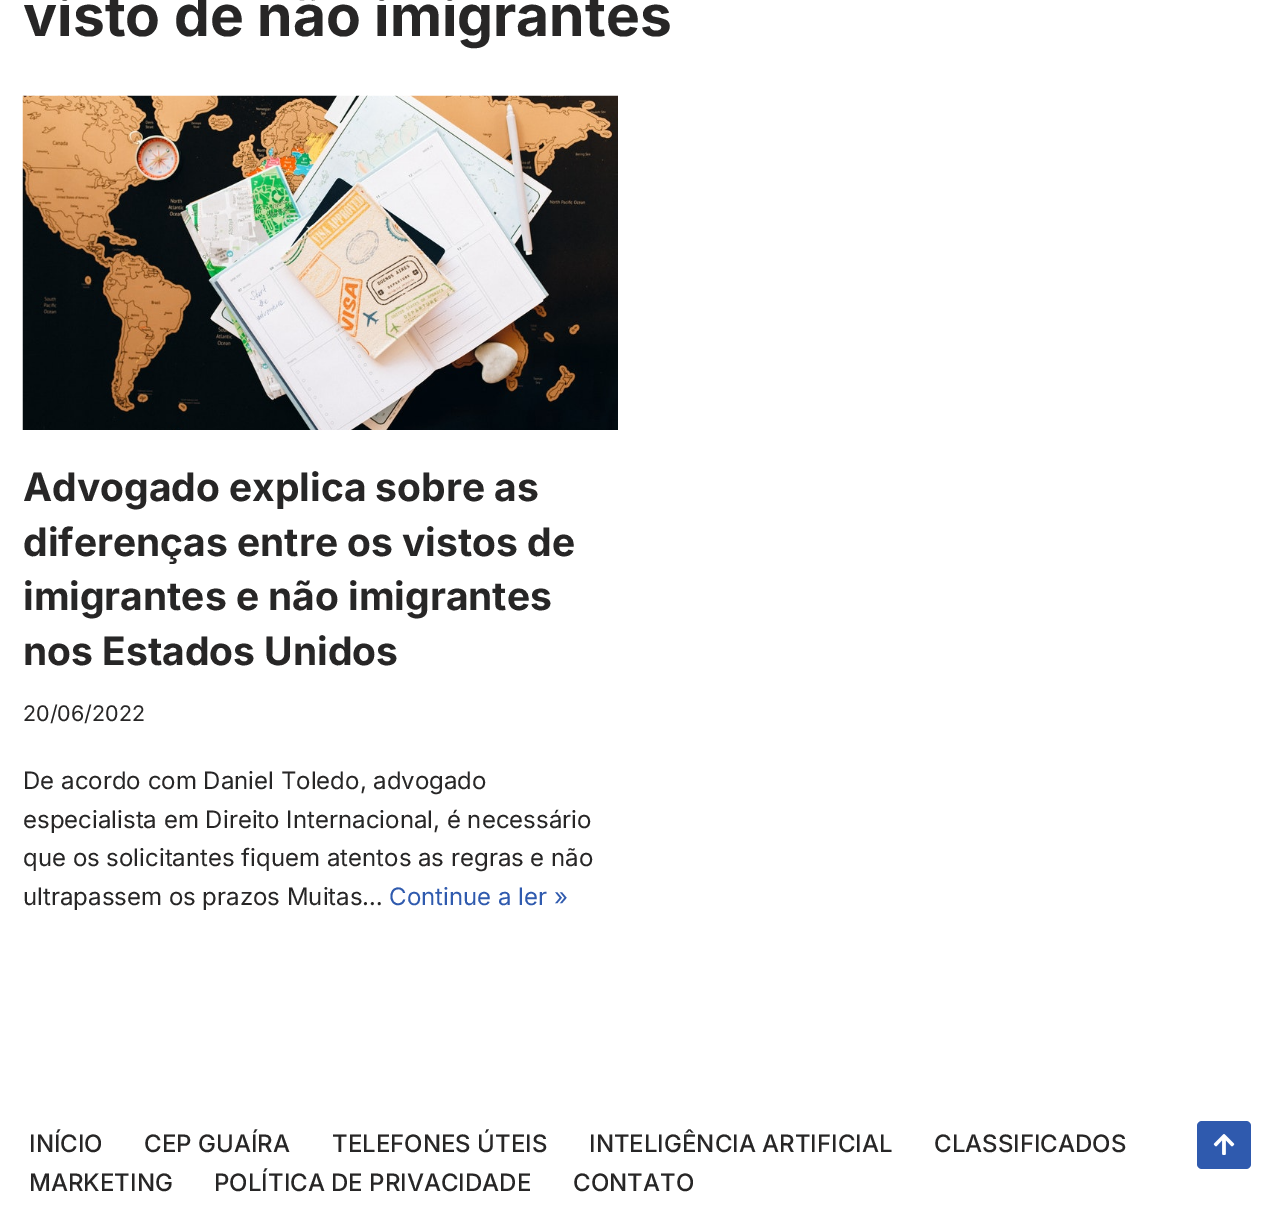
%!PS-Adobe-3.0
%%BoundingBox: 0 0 1281 1213
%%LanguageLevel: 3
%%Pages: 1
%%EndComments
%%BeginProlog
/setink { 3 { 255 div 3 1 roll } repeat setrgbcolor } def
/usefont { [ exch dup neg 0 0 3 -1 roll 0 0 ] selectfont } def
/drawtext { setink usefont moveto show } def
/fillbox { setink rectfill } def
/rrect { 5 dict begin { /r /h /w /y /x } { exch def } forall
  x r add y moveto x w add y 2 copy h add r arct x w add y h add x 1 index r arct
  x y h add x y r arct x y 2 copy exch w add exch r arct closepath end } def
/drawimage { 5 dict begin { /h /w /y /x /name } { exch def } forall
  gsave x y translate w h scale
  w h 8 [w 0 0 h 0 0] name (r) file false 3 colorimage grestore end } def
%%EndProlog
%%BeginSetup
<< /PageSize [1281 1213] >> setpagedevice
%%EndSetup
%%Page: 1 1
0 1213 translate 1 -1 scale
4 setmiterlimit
0 0 1281 1213 255 255 255 fillbox
(visto de não imigrantes) 23 36 /Inter-Bold 57 39 38 38 drawtext
(assets/img1.rgb) 22 95 596 335 drawimage
(Advogado explica sobre as) 23 501 /Inter-Bold 39 39 38 38 drawtext
(diferenças entre os vistos de) 23 556 /Inter-Bold 39 39 38 38 drawtext
(imigrantes e não imigrantes) 23 610 /Inter-Bold 39 39 38 38 drawtext
(nos Estados Unidos) 23 665 /Inter-Bold 39 39 38 38 drawtext
(20/06/2022) 23 721 /Inter-Regular 21.5 39 38 38 drawtext
(De acordo com Daniel Toledo, advogado) 23 789 /Inter-Regular 24 39 38 38 drawtext
(especialista em Direito Internacional, é necessário) 23 828 /Inter-Regular 24 39 38 38 drawtext
(que os solicitantes fiquem atentos as regras e não) 23 866 /Inter-Regular 24 39 38 38 drawtext
(ultrapassem os prazos Muitas…) 23 905 /Inter-Regular 24 39 38 38 drawtext
(Continue a ler ») 389 905 /Inter-Regular 24 47 90 174 drawtext
(INÍCIO) 29 1152 /Inter-Medium 24 39 38 38 drawtext
(CEP GUAÍRA) 144 1152 /Inter-Medium 24 39 38 38 drawtext
(TELEFONES ÚTEIS) 332 1152 /Inter-Medium 24 39 38 38 drawtext
(INTELIGÊNCIA ARTIFICIAL) 589 1152 /Inter-Medium 24 39 38 38 drawtext
(CLASSIFICADOS) 934 1152 /Inter-Medium 24 39 38 38 drawtext
(MARKETING) 29 1191 /Inter-Medium 24 39 38 38 drawtext
(POLÍTICA DE PRIVACIDADE) 214 1191 /Inter-Medium 24 39 38 38 drawtext
(CONTATO) 573 1191 /Inter-Medium 24 39 38 38 drawtext
47 90 174 setink
1197 1121 54 48 5 rrect fill
(assets/img2.rgb) 1213 1134 22 21 drawimage
showpage
%%EOF
